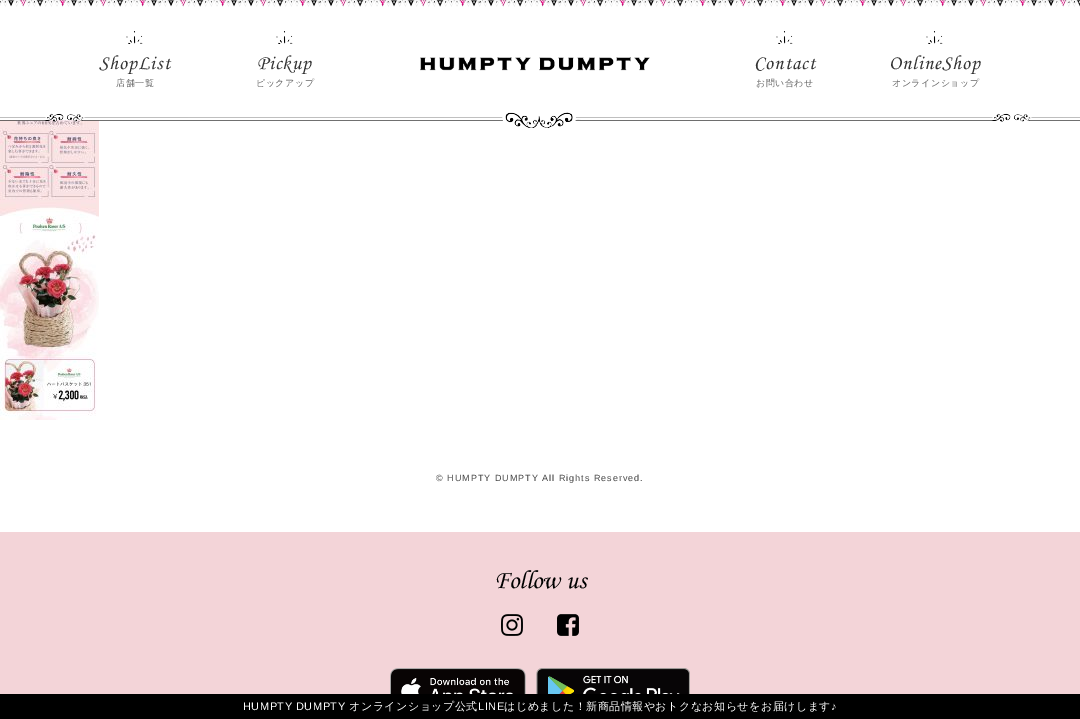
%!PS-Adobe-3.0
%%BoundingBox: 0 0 1080 719
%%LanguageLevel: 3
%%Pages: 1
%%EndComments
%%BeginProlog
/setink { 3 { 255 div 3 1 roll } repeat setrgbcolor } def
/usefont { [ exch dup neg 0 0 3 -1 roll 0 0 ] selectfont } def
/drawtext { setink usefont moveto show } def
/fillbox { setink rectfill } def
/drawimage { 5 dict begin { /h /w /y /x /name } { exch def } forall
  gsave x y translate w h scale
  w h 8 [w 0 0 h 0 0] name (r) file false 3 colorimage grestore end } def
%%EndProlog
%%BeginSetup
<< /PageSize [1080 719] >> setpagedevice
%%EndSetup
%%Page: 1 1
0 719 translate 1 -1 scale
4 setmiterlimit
0 0 1080 719 255 255 255 fillbox
(assets/img1.rgb) 0 0 1080 7 drawimage
(assets/img2.rgb) 126 31 17 13 drawimage
/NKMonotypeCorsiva-Italic 20 usefont
51 51 51 setink
99 69 moveto 1 0 (ShopList) ashow
/WenQuanYiZenHei-Medium 9 usefont
102 102 102 setink
116 86 moveto 0.5 0 (店舗一覧) ashow
(assets/img2.rgb) 276 31 17 13 drawimage
/NKMonotypeCorsiva-Italic 20 usefont
51 51 51 setink
257 69 moveto 1 0 (Pickup) ashow
/WenQuanYiZenHei-Medium 9 usefont
102 102 102 setink
256 86 moveto 0.5 0 (ピックアップ) ashow
(assets/img3.rgb) 420 57 230 14 drawimage
(assets/img2.rgb) 776 31 17 13 drawimage
/NKMonotypeCorsiva-Italic 20 usefont
51 51 51 setink
754 69 moveto 1 0 (Contact) ashow
/WenQuanYiZenHei-Medium 9 usefont
102 102 102 setink
756 86 moveto 0.5 0 (お問い合わせ) ashow
(assets/img2.rgb) 926 31 17 13 drawimage
/NKMonotypeCorsiva-Italic 20 usefont
51 51 51 setink
889 69 moveto 1 0 (OnlineShop) ashow
/WenQuanYiZenHei-Medium 9 usefont
102 102 102 setink
892 86 moveto 0.5 0 (オンラインショップ) ashow
(assets/img5.rgb) 0 120 99 300 drawimage
(assets/img4.rgb) 0 112 1080 16 drawimage
/LiberationSans-Regular 9 usefont
68 68 68 setink
436 481 moveto 1 0 (© HUMPTY DUMPTY All Rights Reserved.) ashow
0 532 1080 162 243 212 216 fillbox
(Follow us) 494 588 /NKMonotypeCorsiva-Italic 26 0 0 0 drawtext
(assets/img6.rgb) 501 614 22 22 drawimage
(assets/img7.rgb) 557 614 22 22 drawimage
(assets/img8.rgb) 390 668 136 26 drawimage
(assets/img9.rgb) 536 668 154 26 drawimage
0 694 1080 25 0 0 0 fillbox
/LiberationSans-Regular 11 usefont
255 255 255 setink
243 710 moveto 0.5 0 (HUMPTY DUMPTY) ashow
/WenQuanYiZenHei-Medium 11 usefont
349 710 moveto 0.5 0 (オンラインショップ公式) ashow
/LiberationSans-Regular 11 usefont
478 710 moveto 0.5 0 (LINE) ashow
/WenQuanYiZenHei-Medium 11 usefont
504 710 moveto 0.5 0 (はじめました！新商品情報やおトクなお知らせをお届けします) ashow
/LiberationSans-Regular 11 usefont
831 710 moveto 0.5 0 (♪) ashow
showpage
%%EOF
